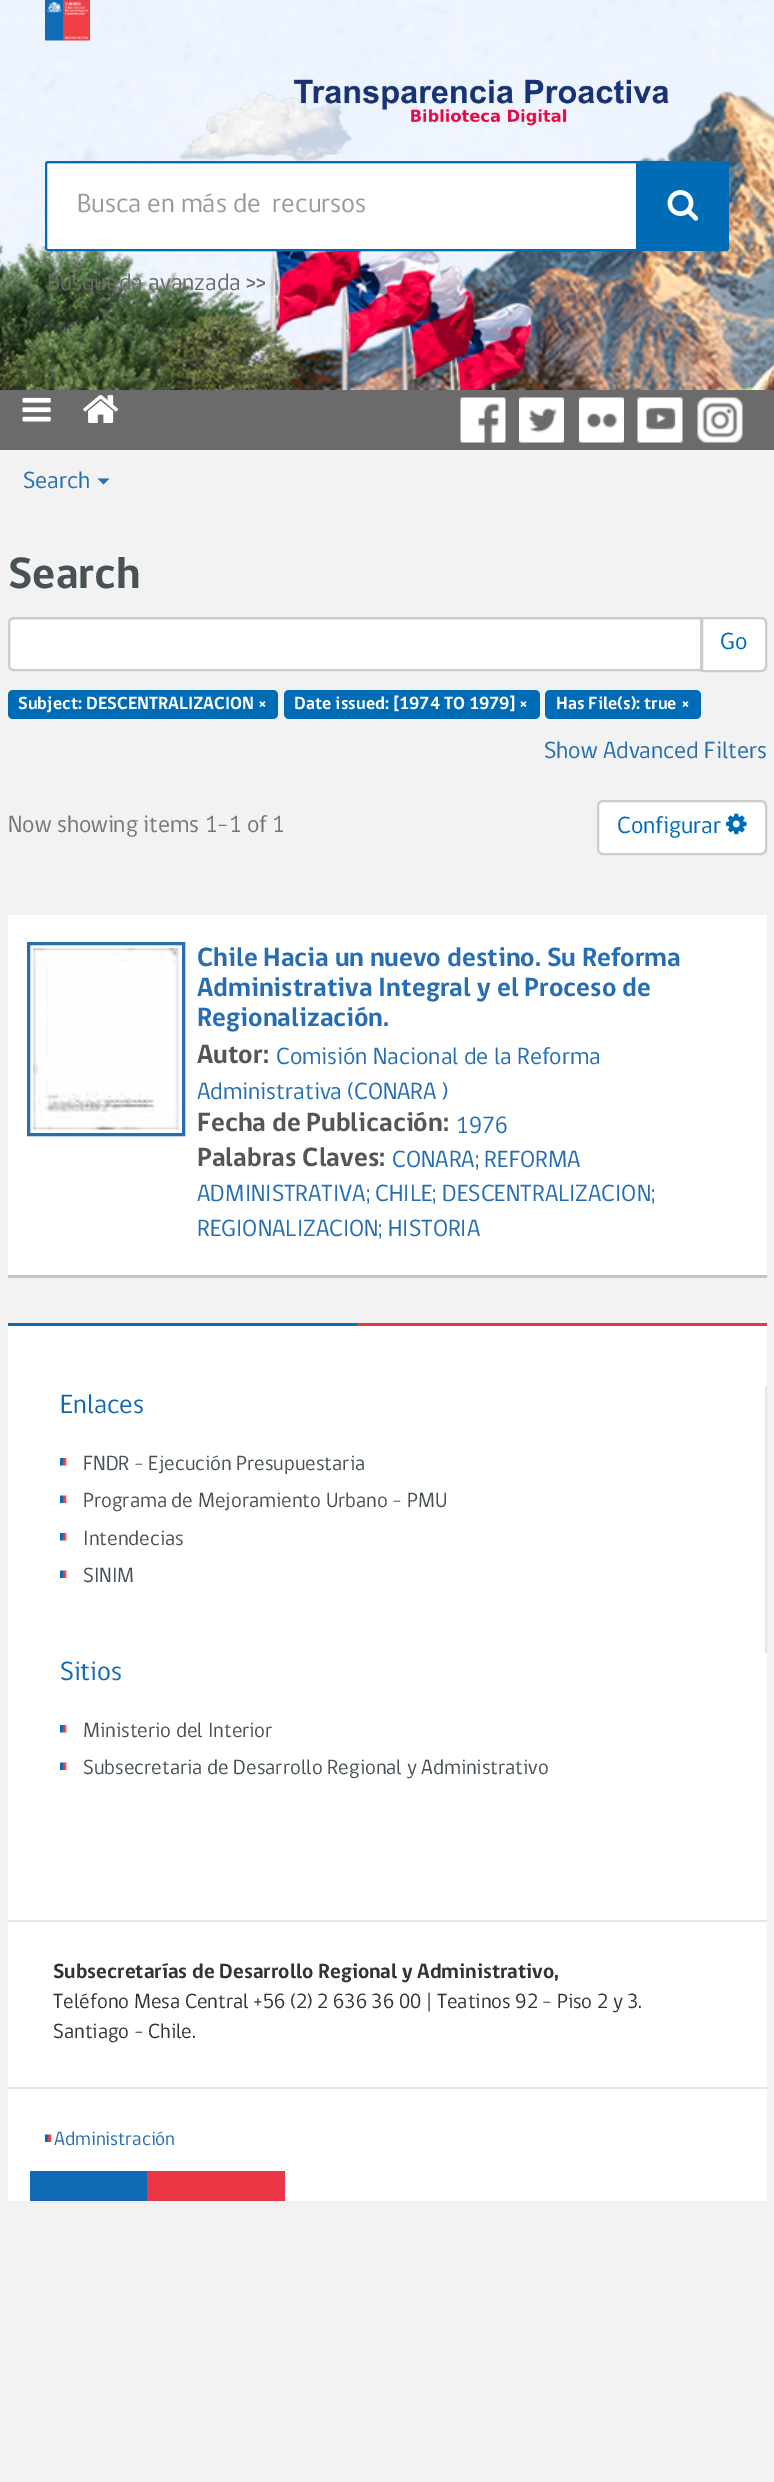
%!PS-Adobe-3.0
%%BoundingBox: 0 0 774 2482
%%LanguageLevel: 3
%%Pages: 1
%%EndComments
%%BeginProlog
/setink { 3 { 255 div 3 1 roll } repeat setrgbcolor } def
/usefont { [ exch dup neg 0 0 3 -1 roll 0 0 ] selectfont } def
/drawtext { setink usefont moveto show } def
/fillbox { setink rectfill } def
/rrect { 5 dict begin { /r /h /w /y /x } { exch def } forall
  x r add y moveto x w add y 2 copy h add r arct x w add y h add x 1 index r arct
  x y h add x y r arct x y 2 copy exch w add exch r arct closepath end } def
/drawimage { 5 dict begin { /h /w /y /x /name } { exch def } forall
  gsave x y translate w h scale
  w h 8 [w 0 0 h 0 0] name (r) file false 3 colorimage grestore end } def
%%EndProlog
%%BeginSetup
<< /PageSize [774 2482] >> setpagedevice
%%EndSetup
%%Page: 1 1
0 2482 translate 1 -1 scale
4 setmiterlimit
0 0 774 2482 242 242 242 fillbox
(assets/img1.rgb) 0 0 774 390 drawimage
(assets/img2.rgb) 45 0 45 41 drawimage
(assets/img3.rgb) 293 79 376 47 drawimage
0 108 182 setink
636 161 93 90 3 rrect fill
255 255 255 setink
48 161 moveto 638 161 lineto 638 251 lineto 48 251 lineto 46.5 251 45 249.5 45 248 curveto 45 164 lineto 45 162.5 46.5 161 48 161 curveto closepath fill
236 236 236 setink
48 164 moveto 636 164 lineto 636 162 lineto 48 162 lineto 47 162 47 163 47 164 curveto closepath fill
0 108 182 setink
2 setlinewidth
48 162 moveto 637 162 lineto 637 250 lineto 48 250 lineto 47 250 46 249 46 248 curveto 46 164 lineto 46 163 47 162 48 162 curveto closepath stroke
(Busca en más de  recursos) 77 212 /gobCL-Regular 27 153 153 153 drawtext
(assets/img4.rgb) 667 190 32 31 drawimage
(Búsqueda avanzada >>) 47 290 /gobCL-Regular 24 107 107 107 drawtext
0 390 774 60 107 107 107 fillbox
(assets/img5.rgb) 22 397 29 25 drawimage
(assets/img6.rgb) 83 395 36 28 drawimage
(assets/img7.rgb) 460 397 46 46 drawimage
(assets/img8.rgb) 519 397 45 46 drawimage
(assets/img9.rgb) 579 397 45 46 drawimage
(assets/img10.rgb) 637 397 46 46 drawimage
(assets/img11.rgb) 697 397 46 46 drawimage
(Search) 23 488 /gobCL-Regular 24 38 110 177 drawtext
97.5 478.5 moveto 109.5 478.5 lineto 103.5 484.5 lineto closepath fill
(Search) 8 588 /gobCL-Bold 45 71 81 86 drawtext
255 255 255 setink
702 618 moveto 761 618 lineto 764 618 766 620 766 623 curveto 766 666 lineto 766 669 764 671 761 671 curveto 702 671 lineto closepath gsave fill grestore
204 204 204 setink
stroke
255 255 255 setink
14 617 moveto 702 617 lineto 702 671 lineto 14 671 lineto 10.5 671 8 668.5 8 665 curveto 8 623 lineto 8 619.5 10.5 617 14 617 curveto closepath fill
236 236 236 setink
14 620 moveto 700 620 lineto 700 669 lineto 701 669 lineto 701 618 lineto 14 618 lineto 11 618 9 621 9 624 curveto 9 622 11 620 14 620 curveto closepath fill
204 204 204 setink
14 618 moveto 701 618 lineto 701 670 lineto 14 670 lineto 11 670 9 668 9 665 curveto 9 623 lineto 9 620 11 618 14 618 curveto closepath stroke
(Go) 720 649 /gobCL-Regular 24 0 108 182 drawtext
8 690 270 29 5 rrect fill
(Subject: DESCENTRALIZACION ×) 18 709 /gobCL-Bold 18 255 255 255 drawtext
0 108 182 setink
284 690 256 29 5 rrect fill
(Date issued: [1974 TO 1979] ×) 294 709 /gobCL-Bold 18 255 255 255 drawtext
0 108 182 setink
545 690 156 29 5 rrect fill
(Has File\(s\): true ×) 556 709 /gobCL-Bold 18 255 255 255 drawtext
(Show Advanced Filters) 544 758 /gobCL-Regular 24 38 110 177 drawtext
(Now showing items 1-1 of 1) 8 832 /gobCL-Regular 24 119 119 119 drawtext
255 255 255 setink
598 801 168 53 5 rrect gsave fill grestore
204 204 204 setink
stroke
(Configurar) 617 833 /gobCL-Regular 24 0 108 182 drawtext
(assets/img12.rgb) 726 813 21 22 drawimage
8 915 759 360 255 255 255 fillbox
8 1275 759 3 190 199 206 fillbox
(assets/img13.rgb) 33 948 146 182 drawimage
38 110 177 setink
3 setlinewidth
28.5 943.5 155 191 rectstroke
(Chile Hacia un nuevo destino. Su Reforma) 197 966 /gobCL-Bold 27 38 110 177 drawtext
(Administrativa Integral y el Proceso de) 197 996 /gobCL-Bold 27 38 110 177 drawtext
(Regionalización.) 197 1026 /gobCL-Bold 27 38 110 177 drawtext
(Autor:) 197 1063 /gobCL-Bold 27 85 85 85 drawtext
(Comisión Nacional de la Reforma) 276 1064 /gobCL-Regular 24 38 110 177 drawtext
(Administrativa \(CONARA \)) 197 1099 /gobCL-Regular 24 38 110 177 drawtext
(Fecha de Publicación:) 197 1131 /gobCL-Bold 27 85 85 85 drawtext
(1976) 456 1133 /gobCL-Regular 24 38 110 177 drawtext
(Palabras Claves:) 197 1166 /gobCL-Bold 27 85 85 85 drawtext
(CONARA; REFORMA) 392 1167 /gobCL-Regular 24 38 110 177 drawtext
(ADMINISTRATIVA; CHILE; DESCENTRALIZACION;) 197 1201 /gobCL-Regular 24 38 110 177 drawtext
(REGIONALIZACION; HISTORIA) 197 1236 /gobCL-Regular 24 38 110 177 drawtext
8 1326 759 875 255 255 255 fillbox
8 1323 349 3 15 105 180 fillbox
357 1323 410 3 235 54 70 fillbox
765 1386 2 267 230 230 230 fillbox
(Enlaces) 60 1413 /gobCL-Regular 27 15 105 180 drawtext
(assets/img14.rgb) 60 1458 8 8 drawimage
(FNDR - Ejecución Presupuestaria) 83 1470 /gobCL-Regular 21 71 81 86 drawtext
(assets/img15.rgb) 60 1495 8 8 drawimage
(Programa de Mejoramiento Urbano - PMU) 83 1507 /gobCL-Regular 21 71 81 86 drawtext
(assets/img14.rgb) 60 1533 8 8 drawimage
(Intendecias) 83 1545 /gobCL-Regular 21 71 81 86 drawtext
(assets/img15.rgb) 60 1570 8 8 drawimage
(SINIM) 83 1582 /gobCL-Regular 21 71 81 86 drawtext
(Sitios) 60 1680 /gobCL-Regular 27 15 105 180 drawtext
(assets/img14.rgb) 60 1725 8 8 drawimage
(Ministerio del Interior) 83 1737 /gobCL-Regular 21 71 81 86 drawtext
(assets/img15.rgb) 60 1762 8 8 drawimage
(Subsecretaria de Desarrollo Regional y Administrativo) 83 1774 /gobCL-Regular 21 71 81 86 drawtext
8 1920 759 2 230 230 230 fillbox
(Subsecretarías de Desarrollo Regional y Administrativo,) 53 1978 /gobCL-Bold 21 51 51 51 drawtext
(Teléfono Mesa Central +56 \(2\) 2 636 36 00 | Teatinos 92 - Piso 2 y 3.) 53 2008 /gobCL-Regular 21 51 51 51 drawtext
(Santiago - Chile.) 53 2038 /gobCL-Regular 21 51 51 51 drawtext
8 2087 759 2 230 230 230 fillbox
(assets/img15.rgb) 45 2134 8 8 drawimage
(Administración) 54 2145 /gobCL-Regular 19.5 38 110 177 drawtext
30 2171 117 30 15 105 180 fillbox
147 2171 138 30 235 54 70 fillbox
showpage
%%EOF
